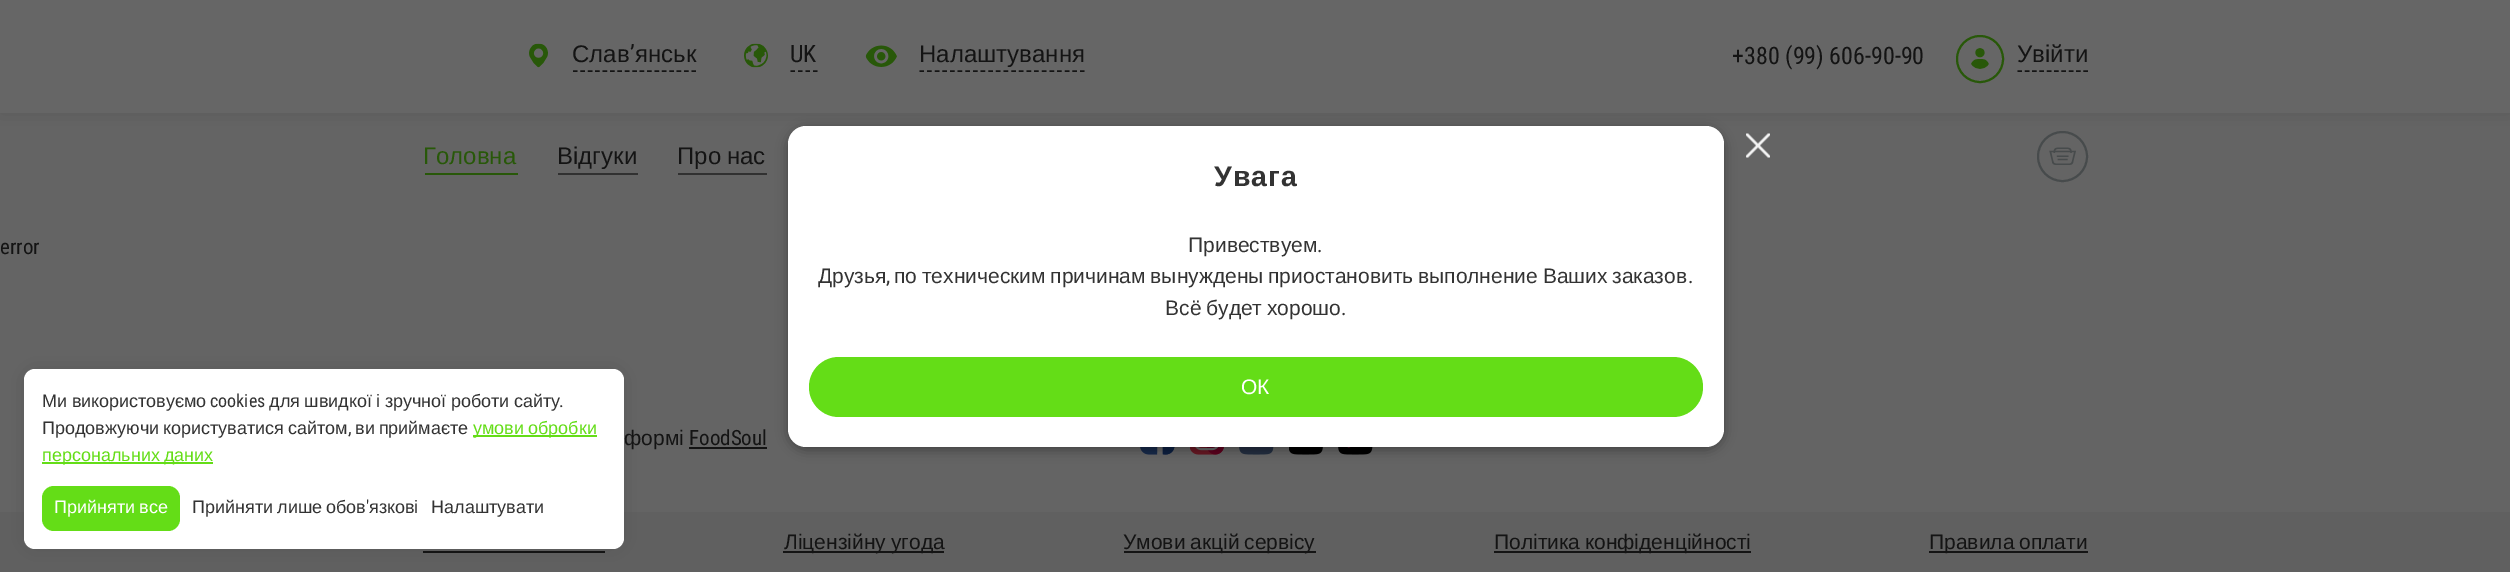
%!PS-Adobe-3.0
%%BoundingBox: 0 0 2510 572
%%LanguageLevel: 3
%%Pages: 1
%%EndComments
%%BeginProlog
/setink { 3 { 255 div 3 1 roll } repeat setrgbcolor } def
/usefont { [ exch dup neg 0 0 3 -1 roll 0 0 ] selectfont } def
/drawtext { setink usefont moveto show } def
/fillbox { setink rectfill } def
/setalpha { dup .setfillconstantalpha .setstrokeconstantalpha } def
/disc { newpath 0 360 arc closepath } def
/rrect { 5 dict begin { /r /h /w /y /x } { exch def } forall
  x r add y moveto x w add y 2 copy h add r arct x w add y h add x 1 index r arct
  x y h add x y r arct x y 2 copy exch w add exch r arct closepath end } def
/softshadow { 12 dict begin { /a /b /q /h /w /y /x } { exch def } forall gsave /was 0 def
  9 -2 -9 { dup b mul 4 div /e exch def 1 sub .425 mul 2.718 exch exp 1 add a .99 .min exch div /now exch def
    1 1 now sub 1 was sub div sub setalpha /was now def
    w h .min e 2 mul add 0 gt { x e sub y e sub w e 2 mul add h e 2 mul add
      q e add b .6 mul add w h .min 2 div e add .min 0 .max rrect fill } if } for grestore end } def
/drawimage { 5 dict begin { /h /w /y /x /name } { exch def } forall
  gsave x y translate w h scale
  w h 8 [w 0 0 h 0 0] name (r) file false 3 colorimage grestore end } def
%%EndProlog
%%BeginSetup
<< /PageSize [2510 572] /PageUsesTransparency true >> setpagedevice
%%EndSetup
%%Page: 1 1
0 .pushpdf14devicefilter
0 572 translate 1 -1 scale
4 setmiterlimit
0 0 2510 572 100 100 100 fillbox
0 0 0 setink
0 0 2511 113 0 11 0.1 softshadow
0 0 2510 113 102 102 102 fillbox
(assets/img1.rgb) 529 43 19 25 drawimage
20 20 20 setink
1.5 setlinewidth
[4.5 2.91] 0 setdash
573 71 moveto 696 71 lineto stroke
(Слав) 572 62 /LiberationSans-Regular 24 20 20 20 drawtext
(ʼ) 630 62 /RobotoCondensed-Regular 24 20 20 20 drawtext
(янськ) 635 62 /LiberationSans-Regular 24 20 20 20 drawtext
(assets/img2.rgb) 744 43 24 25 drawimage
[4.5 3] 0 setdash
790.5 71 moveto 817.5 71 lineto stroke
(UK) 790 62 /RobotoCondensed-Regular 24 20 20 20 drawtext
(assets/img3.rgb) 865 45 32 22 drawimage
[4.5 3.15] 0 setdash
919.5 71 moveto 1084.5 71 lineto stroke
(Налаштування) 919 62 /LiberationSans-Regular 24 20 20 20 drawtext
(+380 \(99\) 606-90-90) 1732 64 /RobotoCondensed-Regular 24 20 20 20 drawtext
40 88 9 setink
2 setlinewidth
[] 0 setdash
1980 59 23 disc stroke
(assets/img4.rgb) 1971 48 18 21 drawimage
20 20 20 setink
1.5 setlinewidth
[4.5 2.83] 0 setdash
2017.5 71 moveto 2088 71 lineto stroke
(Увійти) 2017 62 /LiberationSans-Regular 24 20 20 20 drawtext
(Головна) 423 164 /LiberationSans-Regular 24 40 88 9 drawtext
425 173 93 2 40 88 9 fillbox
(Відгуки) 557 164 /LiberationSans-Regular 24 20 20 20 drawtext
558 173 80 2 49 49 49 fillbox
20 20 20 setink
677 164 moveto -1 0 32 (Про нас) widthshow
678 173 89 2 49 49 49 fillbox
(error) 0 254 /RobotoCondensed-Regular 21 20 20 20 drawtext
(assets/img5.rgb) 1746 133 24 25 drawimage
(assets/img7.rgb) 1140 447 35 8 drawimage
(assets/img8.rgb) 1190 447 34 8 drawimage
(assets/img9.rgb) 1239 447 35 8 drawimage
(assets/img10.rgb) 1289 447 34 8 drawimage
(assets/img11.rgb) 1338 447 35 8 drawimage
0 0 0 setink
788 129 936 321 18 6 0.33 softshadow
255 255 255 setink
788 126 936 321 18 rrect fill
/LiberationSans-Bold 28.5 usefont
51 51 51 setink
1214 186 moveto 1 0 (Увага) ashow
(Привествуем) 1188 252 /LiberationSans-Regular 21 51 51 51 drawtext
(.) 1317 252 /RobotoCondensed-Regular 21 51 51 51 drawtext
(Друзья) 818 283 /LiberationSans-Regular 21 51 51 51 drawtext
(,) 886 283 /RobotoCondensed-Regular 21 51 51 51 drawtext
/LiberationSans-Regular 21 usefont
894 283 moveto -1 0 32 (по техническим причинам вынуждены приостановить выполнение Ваших заказов) widthshow
(.) 1688 283 /RobotoCondensed-Regular 21 51 51 51 drawtext
/LiberationSans-Regular 21 usefont
1165 315 moveto -1 0 32 (Всё будет хорошо) widthshow
(.) 1341 315 /RobotoCondensed-Regular 21 51 51 51 drawtext
100 221 23 setink
809 357 894 60 30 rrect fill
(ОК) 1241 394 /LiberationSans-Regular 21 255 255 255 drawtext
71 75 76 setink
2 setlinewidth
[] 0 setdash
2062.5 156.5 24.5 disc stroke
(assets/img6.rgb) 2049 147 27 18 drawimage
0 512 2510 60 96 96 96 fillbox
423 551 182 2 20 20 20 fillbox
0 0 0 setink
24 369 600 180 11 11 0.1 softshadow
255 255 255 setink
24 369 600 180 11 rrect fill
/LiberationSans-Regular 18 usefont
51 51 51 setink
42 407 moveto -0.5 0 32 (Ми використовуємо) widthshow
(cookies) 210 407 /RobotoCondensed-Regular 18 51 51 51 drawtext
/LiberationSans-Regular 18 usefont
269 407 moveto -0.5 0 32 (для швидкої і зручної роботи сайту) widthshow
(.) 559 407 /RobotoCondensed-Regular 18 51 51 51 drawtext
/LiberationSans-Regular 18 usefont
42 434 moveto -1 0 32 (Продовжуючи користуватися сайтом) widthshow
(,) 348 434 /RobotoCondensed-Regular 18 51 51 51 drawtext
/LiberationSans-Regular 18 usefont
355 434 moveto -1 0 32 (ви приймаєте) widthshow
473 435 124 2 100 221 23 fillbox
473 434 moveto -1 0 32 (умови обробки) widthshow
42 462 171 2 100 221 23 fillbox
42 461 moveto -1 0 32 (персональних даних) widthshow
42 486 138 45 12 rrect fill
255 255 255 setink
54 513 moveto -1 0 32 (Прийняти все) widthshow
51 51 51 setink
192 513 moveto -1 0 32 (Прийняти лише обов) widthshow
(') 366 513 /RobotoCondensed-Regular 18 51 51 51 drawtext
(язкові) 369 513 /LiberationSans-Regular 18 51 51 51 drawtext
(Налаштувати) 431 513 /LiberationSans-Regular 18 51 51 51 drawtext
/LiberationSans-Regular 21 usefont
20 20 20 setink
624 445 moveto -1 0 32 (формі) widthshow
(FoodSoul) 689 445 /RobotoCondensed-Regular 21 20 20 20 drawtext
689 447 78 2 20 20 20 fillbox
783 551 161 2 20 20 20 fillbox
/LiberationSans-Regular 21 usefont
784 549 moveto -1 0 32 (Ліцензійну угода) widthshow
1124 551 192 2 20 20 20 fillbox
1123 549 moveto -1 0 32 (Умови акцій сервісу) widthshow
1494 551 257 2 20 20 20 fillbox
1494 549 moveto -1 0 32 (Політика конфіденційності) widthshow
1929 551 159 2 20 20 20 fillbox
1929 549 moveto -1 0 32 (Правила оплати) widthshow
.poppdf14devicefilter showpage
%%EOF
